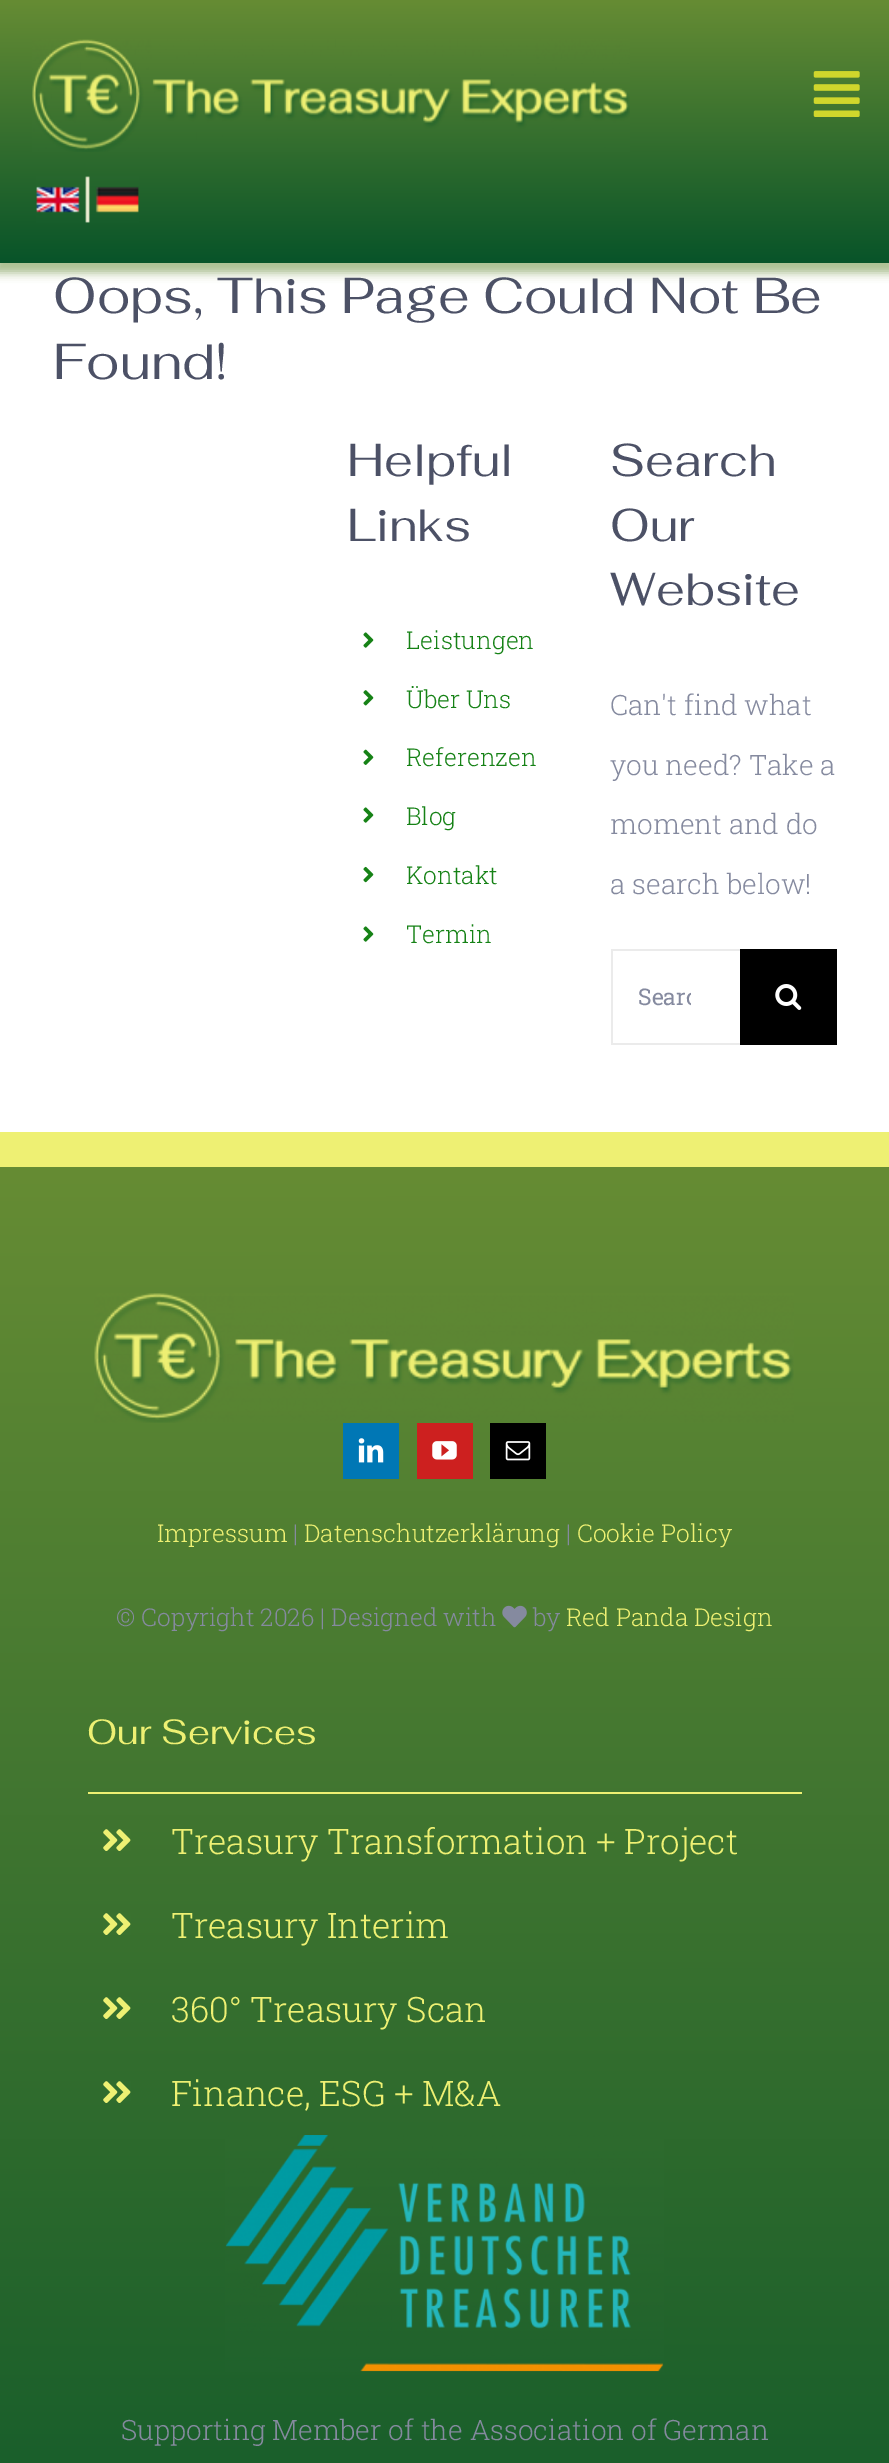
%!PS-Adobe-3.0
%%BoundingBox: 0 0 889 2463
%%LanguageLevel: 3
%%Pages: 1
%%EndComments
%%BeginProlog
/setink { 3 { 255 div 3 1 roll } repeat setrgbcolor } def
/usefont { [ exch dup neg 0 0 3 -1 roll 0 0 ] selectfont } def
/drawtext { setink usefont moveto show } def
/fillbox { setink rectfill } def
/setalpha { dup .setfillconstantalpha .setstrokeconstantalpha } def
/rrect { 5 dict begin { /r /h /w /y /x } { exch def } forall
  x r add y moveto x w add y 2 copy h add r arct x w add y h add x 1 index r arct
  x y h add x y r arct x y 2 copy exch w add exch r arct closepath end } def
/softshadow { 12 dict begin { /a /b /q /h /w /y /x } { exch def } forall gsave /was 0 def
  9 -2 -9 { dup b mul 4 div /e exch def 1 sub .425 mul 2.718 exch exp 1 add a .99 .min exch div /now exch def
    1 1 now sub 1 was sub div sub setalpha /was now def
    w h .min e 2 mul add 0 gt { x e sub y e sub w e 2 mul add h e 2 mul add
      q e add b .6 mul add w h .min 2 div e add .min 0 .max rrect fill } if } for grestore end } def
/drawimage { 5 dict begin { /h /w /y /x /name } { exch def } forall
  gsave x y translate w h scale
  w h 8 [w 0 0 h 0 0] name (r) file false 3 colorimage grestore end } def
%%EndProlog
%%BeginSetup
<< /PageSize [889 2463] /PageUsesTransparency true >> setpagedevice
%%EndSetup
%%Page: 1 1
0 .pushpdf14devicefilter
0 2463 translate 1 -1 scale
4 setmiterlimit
0 0 889 2463 255 255 255 fillbox
105 140 58 setink
-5 0 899 273 0 4.5 0.55 softshadow
gsave 0 0 moveto 889 0 lineto 889 263 lineto 0 263 lineto closepath clip newpath
<< /ShadingType 2 /ColorSpace /DeviceRGB /Coords [445 0 445 263] /Extend [true true] /Function << /FunctionType 2 /Domain [0 1] /C0 [0.4 0.549 0.204] /C1 [0.031 0.329 0.161] /N 1 >> >> shfill grestore
(assets/img1.rgb) 32 39 598 113 drawimage
(assets/img2.rgb) 813 71 47 46 drawimage
(assets/img3.rgb) 36 176 103 47 drawimage
(Oops, This Page Could Not Be) 53 313 /Fahkwang-Regular 50.4 76 81 102 drawtext
(Found!) 53 379 /Fahkwang-Regular 50.4 76 81 102 drawtext
(Helpful) 347 476 /Fahkwang-Regular 46 76 81 102 drawtext
(Links) 347 541 /Fahkwang-Regular 46 76 81 102 drawtext
(assets/img4.rgb) 363 632 11 16 drawimage
(Leistungen) 406 649 /RobotoSlab-Light 24.5 22 130 22 drawtext
(assets/img5.rgb) 363 690 11 16 drawimage
(Über Uns) 406 708 /RobotoSlab-Light 24.5 22 130 22 drawtext
(assets/img6.rgb) 363 749 11 16 drawimage
(Referenzen) 406 766 /RobotoSlab-Light 24.5 22 130 22 drawtext
(assets/img4.rgb) 363 807 11 16 drawimage
(Blog) 406 825 /RobotoSlab-Light 24.5 22 130 22 drawtext
(assets/img7.rgb) 363 866 11 17 drawimage
(Kontakt) 406 884 /RobotoSlab-Light 24.5 22 130 22 drawtext
(assets/img4.rgb) 363 926 11 16 drawimage
(Termin) 406 943 /RobotoSlab-Light 24.5 22 130 22 drawtext
(Search) 610 476 /Fahkwang-Regular 46 76 81 102 drawtext
(Our) 610 541 /Fahkwang-Regular 46 76 81 102 drawtext
(Website) 610 605 /Fahkwang-Regular 46 76 81 102 drawtext
(Can't find what) 610 715 /RobotoSlab-Light 28 133 138 159 drawtext
(you need? Take a) 610 775 /RobotoSlab-Light 28 133 138 159 drawtext
(moment and do) 610 834 /RobotoSlab-Light 28 133 138 159 drawtext
(a search below!) 610 894 /RobotoSlab-Light 28 133 138 159 drawtext
611 949 129 2 235 235 235 fillbox
611 1043 129 2 235 235 235 fillbox
611 949 2 96 235 235 235 fillbox
gsave
639 980 52 32 rectclip
(Searc) 638 1005 /RobotoSlab-Regular 23 133 138 159 drawtext
grestore
740 949 97 96 0 0 0 fillbox
(assets/img8.rgb) 775 984 27 26 drawimage
gsave 0 1167 moveto 889 1167 lineto 889 2463 lineto 0 2463 lineto closepath clip newpath
<< /ShadingType 2 /ColorSpace /DeviceRGB /Coords [444 1167 445 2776] /Extend [true true] /Function << /FunctionType 2 /Domain [0 1] /C0 [0.4 0.549 0.204] /C1 [0.031 0.329 0.161] /N 1 >> >> shfill grestore
0 1132 889 35 238 240 115 fillbox
(assets/img9.rgb) 94 1293 700 130 drawimage
343 1423 56 56 0 119 181 fillbox
(assets/img10.rgb) 358 1438 26 25 drawimage
417 1423 56 56 205 32 31 fillbox
(assets/img11.rgb) 432 1441 25 19 drawimage
490 1423 56 56 0 0 0 fillbox
(assets/img12.rgb) 505 1441 26 20 drawimage
(Impressum) 157 1542 /RobotoSlab-Light 24.5 238 240 115 drawtext
(|) 293 1542 /RobotoSlab-Light 24.5 133 138 159 drawtext
(Datenschutzerklärung) 304 1542 /RobotoSlab-Light 24.5 238 240 115 drawtext
(|) 566 1542 /RobotoSlab-Light 24.5 133 138 159 drawtext
(Cookie Policy) 577 1542 /RobotoSlab-Light 24.5 238 240 115 drawtext
(© Copyright 2026 | Designed with) 116 1626 /RobotoSlab-Light 24.5 133 138 159 drawtext
(assets/img13.rgb) 502 1605 25 23 drawimage
(by) 533 1626 /RobotoSlab-Light 24.5 133 138 159 drawtext
(Red Panda Design) 566 1626 /RobotoSlab-Light 24.5 238 240 115 drawtext
(Our Services) 87 1744 /Fahkwang-Regular 35 238 240 115 drawtext
88 1792 714 2 238 240 115 fillbox
(assets/img14.rgb) 103 1829 28 22 drawimage
(Treasury Transformation + Project) 171 1854 /RobotoSlab-Light 35 238 240 115 drawtext
(assets/img15.rgb) 103 1913 28 22 drawimage
(Treasury Interim) 171 1938 /RobotoSlab-Light 35 238 240 115 drawtext
(assets/img16.rgb) 103 1997 28 22 drawimage
(360° Treasury Scan) 171 2022 /RobotoSlab-Light 35 238 240 115 drawtext
(assets/img17.rgb) 103 2081 28 22 drawimage
(Finance, ESG + M&A) 171 2106 /RobotoSlab-Light 35 238 240 115 drawtext
(assets/img18.rgb) 225 2135 439 237 drawimage
(Supporting Member of the Association of German) 121 2440 /RobotoSlab-Light 28 133 138 159 drawtext
.poppdf14devicefilter showpage
%%EOF
